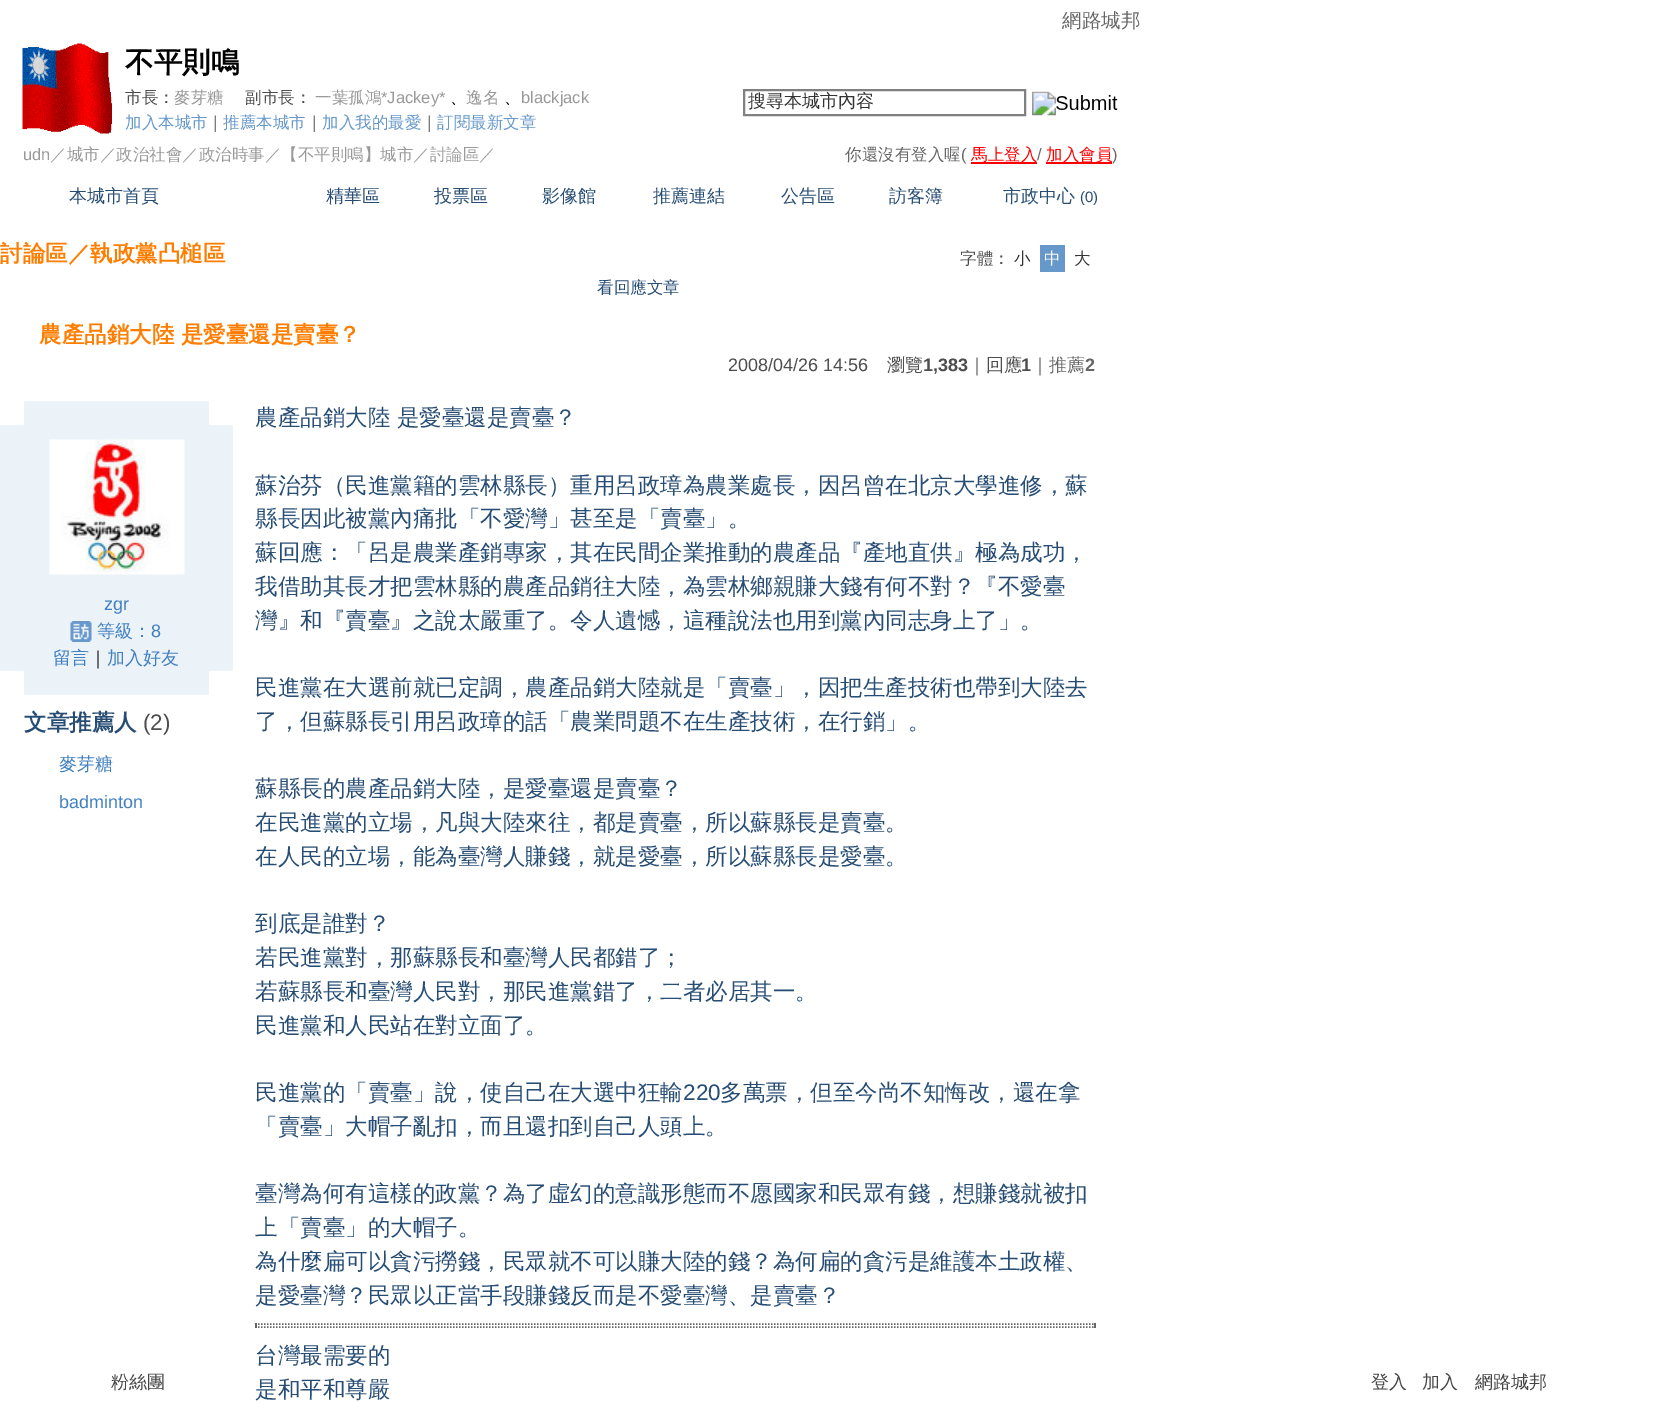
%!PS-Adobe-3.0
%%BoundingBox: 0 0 1659 1403
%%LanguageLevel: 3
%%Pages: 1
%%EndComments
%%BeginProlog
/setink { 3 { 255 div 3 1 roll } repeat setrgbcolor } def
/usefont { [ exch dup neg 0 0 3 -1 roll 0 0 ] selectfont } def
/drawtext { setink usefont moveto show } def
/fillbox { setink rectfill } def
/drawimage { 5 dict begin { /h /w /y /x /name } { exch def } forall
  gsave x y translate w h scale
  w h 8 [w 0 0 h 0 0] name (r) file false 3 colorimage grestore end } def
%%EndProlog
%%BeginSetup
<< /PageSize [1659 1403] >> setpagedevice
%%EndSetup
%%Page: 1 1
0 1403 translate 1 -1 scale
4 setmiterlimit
0 0 1659 1403 255 255 255 fillbox
(網路城邦) 1062 27 /WenQuanYiZenHei-Medium 19.5 102 102 102 drawtext
(assets/img1.rgb) 22 43 90 91 drawimage
(不平則鳴) 125 72 /WenQuanYiZenHei-Bold 28.5 0 0 0 drawtext
(市長：) 125 103 /WenQuanYiZenHei-Medium 16.5 77 77 77 drawtext
(麥芽糖) 174 103 /WenQuanYiZenHei-Medium 16.5 153 153 153 drawtext
(副市長：) 245 103 /WenQuanYiZenHei-Medium 16.5 77 77 77 drawtext
(一葉孤鴻) 315 103 /WenQuanYiZenHei-Medium 16.5 153 153 153 drawtext
(*Jackey*) 381 103 /LiberationSans-Regular 16.5 153 153 153 drawtext
(、) 450 103 /WenQuanYiZenHei-Medium 16.5 0 0 0 drawtext
(逸名) 466 103 /WenQuanYiZenHei-Medium 16.5 153 153 153 drawtext
(、) 504 103 /WenQuanYiZenHei-Medium 16.5 0 0 0 drawtext
(blackjack) 521 103 /LiberationSans-Regular 16.5 153 153 153 drawtext
(加入本城市) 125 128 /WenQuanYiZenHei-Medium 16.5 102 152 204 drawtext
(｜) 207 128 /WenQuanYiZenHei-Medium 16.5 77 77 77 drawtext
(推薦本城市) 223 128 /WenQuanYiZenHei-Medium 16.5 102 152 204 drawtext
(｜) 306 128 /WenQuanYiZenHei-Medium 16.5 77 77 77 drawtext
(加入我的最愛) 322 128 /WenQuanYiZenHei-Medium 16.5 102 152 204 drawtext
(｜) 421 128 /WenQuanYiZenHei-Medium 16.5 77 77 77 drawtext
(訂閱最新文章) 437 128 /WenQuanYiZenHei-Medium 16.5 102 152 204 drawtext
128 128 128 setink
2 setlinewidth
744 90 281 25 rectstroke
(搜尋本城市內容) 748 107 /WenQuanYiZenHei-Medium 18 51 51 51 drawtext
(assets/img2.rgb) 1032 91 86 25 drawimage
(udn) 23 160 /LiberationSans-Regular 16.5 153 153 153 drawtext
(／城市／政治社會／政治時事／【不平則鳴】城市／討論區／) 50 160 /WenQuanYiZenHei-Medium 16.5 153 153 153 drawtext
(你還沒有登入喔) 845 160 /WenQuanYiZenHei-Medium 16.5 102 102 102 drawtext
(\() 961 160 /LiberationSans-Regular 16.5 102 102 102 drawtext
971 162 66 2 255 0 0 fillbox
(馬上登入) 971 160 /WenQuanYiZenHei-Medium 16.5 255 0 0 drawtext
(/) 1037 160 /LiberationSans-Regular 16.5 102 102 102 drawtext
1046 162 66 2 255 0 0 fillbox
(加入會員) 1046 160 /WenQuanYiZenHei-Medium 16.5 255 0 0 drawtext
(\)) 1112 160 /LiberationSans-Regular 16.5 102 102 102 drawtext
(本城市首頁) 69 202 /WenQuanYiZenHei-Medium 18 39 77 116 drawtext
(精華區) 326 202 /WenQuanYiZenHei-Medium 18 39 77 116 drawtext
(投票區) 434 202 /WenQuanYiZenHei-Medium 18 39 77 116 drawtext
(影像館) 542 202 /WenQuanYiZenHei-Medium 18 39 77 116 drawtext
(推薦連結) 653 202 /WenQuanYiZenHei-Medium 18 39 77 116 drawtext
(公告區) 781 202 /WenQuanYiZenHei-Medium 18 39 77 116 drawtext
(訪客簿) 889 202 /WenQuanYiZenHei-Medium 18 39 77 116 drawtext
(市政中心) 1003 202 /WenQuanYiZenHei-Medium 18 39 77 116 drawtext
(\(0\)) 1080 202 /LiberationSans-Regular 15 39 77 116 drawtext
(討論區／執政黨凸槌區) 0 261 /WenQuanYiZenHei-Bold 22.5 255 126 0 drawtext
(字體：) 960 264 /WenQuanYiZenHei-Medium 16.5 77 77 77 drawtext
(小) 1014 264 /WenQuanYiZenHei-Medium 16.5 51 51 51 drawtext
1040 245 25 27 102 152 204 fillbox
(中) 1044 264 /WenQuanYiZenHei-Medium 16.5 255 255 255 drawtext
(大) 1074 264 /WenQuanYiZenHei-Medium 16.5 51 51 51 drawtext
(看回應文章) 597 293 /WenQuanYiZenHei-Medium 16.5 39 77 116 drawtext
(農產品銷大陸 是愛臺還是賣臺？) 39 342 /WenQuanYiZenHei-Bold 22.5 255 126 0 drawtext
(2008/04/26 14:56) 728 371 /LiberationSans-Regular 18 77 77 77 drawtext
(瀏覽) 887 371 /WenQuanYiZenHei-Medium 18 77 77 77 drawtext
(1,383) 923 371 /LiberationSans-Bold 18 77 77 77 drawtext
(｜回應) 968 371 /WenQuanYiZenHei-Medium 18 77 77 77 drawtext
(1) 1021 371 /LiberationSans-Bold 18 77 77 77 drawtext
(｜) 1031 371 /WenQuanYiZenHei-Medium 18 77 77 77 drawtext
(推薦) 1049 371 /WenQuanYiZenHei-Medium 18 102 102 102 drawtext
(2) 1085 371 /LiberationSans-Bold 18 102 102 102 drawtext
24 401 185 24 235 242 248 fillbox
0 425 233 246 235 242 248 fillbox
(assets/img3.rgb) 49 439 136 136 drawimage
(zgr) 104 610 /LiberationSans-Regular 18 65 128 192 drawtext
(assets/img4.rgb) 70 621 22 21 drawimage
(等級：) 97 637 /WenQuanYiZenHei-Medium 18 65 128 192 drawtext
(8) 151 637 /LiberationSans-Regular 18 65 128 192 drawtext
(留言) 53 664 /WenQuanYiZenHei-Medium 18 65 128 192 drawtext
(｜) 89 664 /WenQuanYiZenHei-Medium 18 0 0 0 drawtext
(加入好友) 107 664 /WenQuanYiZenHei-Medium 18 65 128 192 drawtext
24 671 185 24 235 242 248 fillbox
(文章推薦人) 24 730 /WenQuanYiZenHei-Bold 22.5 39 77 116 drawtext
(\(2\)) 143 730 /LiberationSans-Regular 22.5 77 77 77 drawtext
(麥芽糖) 59 770 /WenQuanYiZenHei-Medium 18 65 128 192 drawtext
(badminton) 59 808 /LiberationSans-Regular 18 65 128 192 drawtext
(農產品銷大陸 是愛臺還是賣臺？) 255 425 /WenQuanYiZenHei-Medium 22.5 39 77 116 drawtext
(蘇治芬（民進黨籍的雲林縣長）重用呂政璋為農業處長，因呂曾在北京大學進修，蘇) 255 493 /WenQuanYiZenHei-Medium 22.5 39 77 116 drawtext
(縣長因此被黨內痛批「不愛灣」甚至是「賣臺」。) 255 526 /WenQuanYiZenHei-Medium 22.5 39 77 116 drawtext
(蘇回應：「呂是農業產銷專家，其在民間企業推動的農產品『產地直供』極為成功，) 255 560 /WenQuanYiZenHei-Medium 22.5 39 77 116 drawtext
(我借助其長才把雲林縣的農產品銷往大陸，為雲林鄉親賺大錢有何不對？『不愛臺) 255 594 /WenQuanYiZenHei-Medium 22.5 39 77 116 drawtext
(灣』和『賣臺』之說太嚴重了。令人遺憾，這種說法也用到黨內同志身上了」。) 255 628 /WenQuanYiZenHei-Medium 22.5 39 77 116 drawtext
(民進黨在大選前就已定調，農產品銷大陸就是「賣臺」，因把生產技術也帶到大陸去) 255 695 /WenQuanYiZenHei-Medium 22.5 39 77 116 drawtext
(了，但蘇縣長引用呂政璋的話「農業問題不在生產技術，在行銷」。) 255 729 /WenQuanYiZenHei-Medium 22.5 39 77 116 drawtext
(蘇縣長的農產品銷大陸，是愛臺還是賣臺？) 255 796 /WenQuanYiZenHei-Medium 22.5 39 77 116 drawtext
(在民進黨的立場，凡與大陸來往，都是賣臺，所以蘇縣長是賣臺。) 255 830 /WenQuanYiZenHei-Medium 22.5 39 77 116 drawtext
(在人民的立場，能為臺灣人賺錢，就是愛臺，所以蘇縣長是愛臺。) 255 864 /WenQuanYiZenHei-Medium 22.5 39 77 116 drawtext
(到底是誰對？) 255 931 /WenQuanYiZenHei-Medium 22.5 39 77 116 drawtext
(若民進黨對，那蘇縣長和臺灣人民都錯了；) 255 965 /WenQuanYiZenHei-Medium 22.5 39 77 116 drawtext
(若蘇縣長和臺灣人民對，那民進黨錯了，二者必居其一。) 255 999 /WenQuanYiZenHei-Medium 22.5 39 77 116 drawtext
(民進黨和人民站在對立面了。) 255 1033 /WenQuanYiZenHei-Medium 22.5 39 77 116 drawtext
(民進黨的「賣臺」說，使自己在大選中狂輸) 255 1100 /WenQuanYiZenHei-Medium 22.5 39 77 116 drawtext
(220) 683 1100 /LiberationSans-Regular 22.5 39 77 116 drawtext
(多萬票，但至今尚不知悔改，還在拿) 720 1100 /WenQuanYiZenHei-Medium 22.5 39 77 116 drawtext
(「賣臺」大帽子亂扣，而且還扣到自己人頭上。) 255 1134 /WenQuanYiZenHei-Medium 22.5 39 77 116 drawtext
(臺灣為何有這樣的政黨？為了虛幻的意識形態而不愿國家和民眾有錢，想賺錢就被扣) 255 1201 /WenQuanYiZenHei-Medium 22.5 39 77 116 drawtext
(上「賣臺」的大帽子。) 255 1235 /WenQuanYiZenHei-Medium 22.5 39 77 116 drawtext
(為什麼扁可以貪污撈錢，民眾就不可以賺大陸的錢？為何扁的貪污是維護本土政權、) 255 1269 /WenQuanYiZenHei-Medium 22.5 39 77 116 drawtext
(是愛臺灣？民眾以正當手段賺錢反而是不愛臺灣、是賣臺？) 255 1303 /WenQuanYiZenHei-Medium 22.5 39 77 116 drawtext
102 102 102 setink
1.5 setlinewidth
[1.5 1.5] 0 setdash
255 1324 moveto 1095 1324 lineto stroke
1094 1323 2 5 102 102 102 fillbox
255 1327 moveto 1095 1327 lineto stroke
255 1323 2 5 102 102 102 fillbox
(台灣最需要的) 255 1363 /WenQuanYiZenHei-Medium 22.5 39 77 116 drawtext
(是和平和尊嚴) 255 1397 /WenQuanYiZenHei-Medium 22.5 39 77 116 drawtext
(粉絲團) 111 1388 /WenQuanYiZenHei-Medium 18 68 68 68 drawtext
(登入) 1371 1388 /WenQuanYiZenHei-Medium 18 68 68 68 drawtext
(加入) 1422 1388 /WenQuanYiZenHei-Medium 18 68 68 68 drawtext
(網路城邦) 1475 1388 /WenQuanYiZenHei-Medium 18 68 68 68 drawtext
showpage
%%EOF
